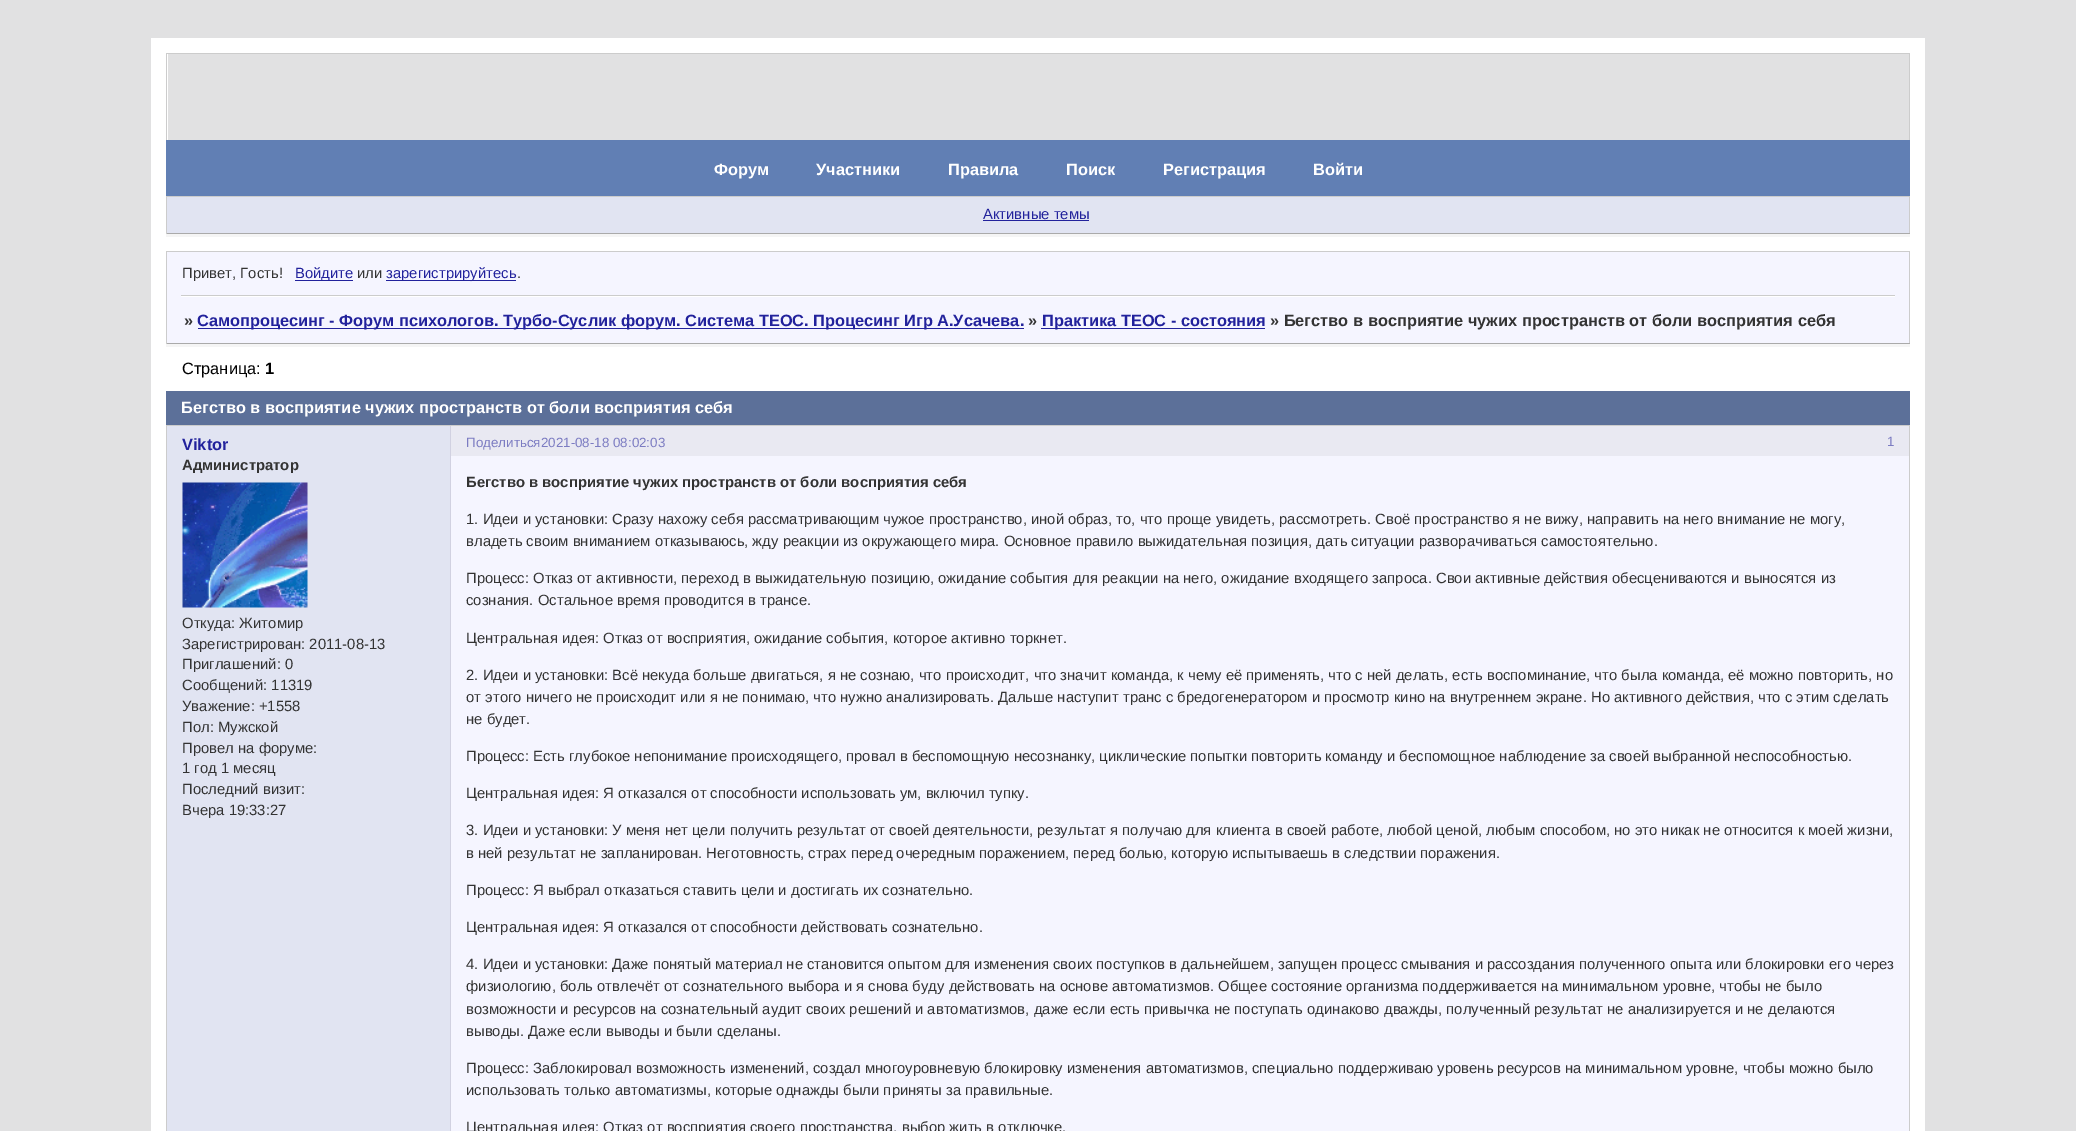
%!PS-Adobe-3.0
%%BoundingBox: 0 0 2076 1131
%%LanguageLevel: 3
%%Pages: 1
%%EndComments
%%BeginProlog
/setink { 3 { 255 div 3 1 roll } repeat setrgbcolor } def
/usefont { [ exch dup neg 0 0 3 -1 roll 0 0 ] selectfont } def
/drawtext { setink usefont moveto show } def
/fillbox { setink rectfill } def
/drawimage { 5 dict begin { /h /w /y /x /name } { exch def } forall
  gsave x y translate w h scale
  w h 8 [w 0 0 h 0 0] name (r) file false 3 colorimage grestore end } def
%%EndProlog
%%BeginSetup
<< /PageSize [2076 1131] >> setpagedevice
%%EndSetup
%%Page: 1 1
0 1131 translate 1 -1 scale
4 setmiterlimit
0 0 2076 1131 225 225 226 fillbox
151 38 1774 1093 255 255 255 fillbox
166 53 1744 1 204 204 204 fillbox
1909 53 1 87 204 204 204 fillbox
166 53 1 87 204 204 204 fillbox
168 54 1741 86 225 225 226 fillbox
166 140 1744 56 97 127 180 fillbox
(Форум) 714 175 /LiberationSans-Bold 16.35 255 255 255 drawtext
(Участники) 816 175 /LiberationSans-Bold 16.35 255 255 255 drawtext
(Правила) 948 175 /LiberationSans-Bold 16.35 255 255 255 drawtext
(Поиск) 1066 175 /LiberationSans-Bold 16.35 255 255 255 drawtext
(Регистрация) 1163 175 /LiberationSans-Bold 16.35 255 255 255 drawtext
(Войти) 1313 175 /LiberationSans-Bold 16.35 255 255 255 drawtext
166 234 1744 3 245 245 245 fillbox
167 197 1742 36 225 228 242 fillbox
166 196 1744 1 204 204 204 fillbox
1909 196 1 38 204 204 204 fillbox
166 233 1744 1 170 170 170 fillbox
166 196 1 38 204 204 204 fillbox
(Активные темы) 983 219 /LiberationSans-Regular 14.85 34 34 156 drawtext
983 220 106 1 34 34 156 fillbox
167 252 1742 91 245 245 255 fillbox
166 251 1744 1 204 204 204 fillbox
1909 251 1 93 204 204 204 fillbox
166 251 1 47 204 204 204 fillbox
(Привет, Гость!) 182 278 /LiberationSans-Regular 14.85 51 51 51 drawtext
295 280 58 1 34 34 156 fillbox
(Войдите) 295 278 /LiberationSans-Regular 14.85 34 34 156 drawtext
(или) 357 278 /LiberationSans-Regular 14.85 51 51 51 drawtext
386 280 130 1 34 34 156 fillbox
(зарегистрируйтесь) 386 278 /LiberationSans-Regular 14.85 34 34 156 drawtext
(.) 517 278 /LiberationSans-Regular 14.85 51 51 51 drawtext
181 295 1714 1 204 204 204 fillbox
181 296 1714 1 255 255 255 fillbox
166 344 1744 3 245 245 245 fillbox
166 343 1744 1 170 170 170 fillbox
166 295 1 49 204 204 204 fillbox
(») 184 326 /LiberationSans-Bold 16.35 51 51 51 drawtext
198 328 826 1 34 34 156 fillbox
197 326 moveto -0.1 0 32 (Самопроцесинг - Форум психологов. Турбо-Суслик форум. Система ТЕОС. Процесинг Игр А.Усачева.) widthshow
(») 1028 326 /LiberationSans-Bold 16.35 51 51 51 drawtext
1041 328 224 1 34 34 156 fillbox
(Практика ТЕОС - состояния) 1042 326 /LiberationSans-Bold 16.35 34 34 156 drawtext
(» Бегство в восприятие чужих пространств от боли восприятия себя) 1270 326 /LiberationSans-Bold 16.35 51 51 51 drawtext
(Страница:) 182 374 /LiberationSans-Regular 16.35 0 0 0 drawtext
(1) 265 374 /LiberationSans-Bold 16.35 0 0 0 drawtext
166 391 1744 34 92 112 153 fillbox
(Бегство в восприятие чужих пространств от боли восприятия себя) 181 413 /LiberationSans-Bold 16.35 255 255 255 drawtext
167 426 283 705 225 228 242 fillbox
166 425 1744 1 204 204 204 fillbox
1909 425 1 706 204 204 204 fillbox
166 425 1 706 204 204 204 fillbox
451 426 1458 30 233 233 242 fillbox
450 426 1 705 209 209 225 fillbox
(Поделиться2021-08-18 08:02:03) 466 447 /LiberationSans-Regular 13.4 124 124 194 drawtext
(1) 1887 446 /LiberationSans-Regular 13.4 124 124 194 drawtext
(Viktor) 182 450 /LiberationSans-Bold 16.35 34 34 156 drawtext
(Администратор) 182 470 /LiberationSans-Bold 14.85 51 51 51 drawtext
(assets/img1.rgb) 182 482 126 126 drawimage
(Откуда: Житомир) 182 628 /LiberationSans-Regular 14.85 51 51 51 drawtext
(Зарегистрирован: 2011-08-13) 182 649 /LiberationSans-Regular 14.85 51 51 51 drawtext
(Приглашений: 0) 182 669 /LiberationSans-Regular 14.85 51 51 51 drawtext
(Сообщений: 11319) 182 690 /LiberationSans-Regular 14.85 51 51 51 drawtext
(Уважение: +1558) 182 711 /LiberationSans-Regular 14.85 51 51 51 drawtext
(Пол: Мужской) 182 732 /LiberationSans-Regular 14.85 51 51 51 drawtext
(Провел на форуме:) 182 753 /LiberationSans-Regular 14.85 51 51 51 drawtext
(1 год 1 месяц) 182 773 /LiberationSans-Regular 14.85 51 51 51 drawtext
(Последний визит:) 182 794 /LiberationSans-Regular 14.85 51 51 51 drawtext
(Вчера 19:33:27) 182 815 /LiberationSans-Regular 14.85 51 51 51 drawtext
451 456 1458 675 245 245 255 fillbox
(Бегство в восприятие чужих пространств от боли восприятия себя) 466 487 /LiberationSans-Bold 14.85 51 51 51 drawtext
(1. Идеи и установки: Сразу нахожу себя рассматривающим чужое пространство, иной образ, то, что проще увидеть, рассмотреть. Своё пространство я не вижу, направить на него внимание не могу,) 466 524 /LiberationSans-Regular 14.85 51 51 51 drawtext
(владеть своим вниманием отказываюсь, жду реакции из окружающего мира. Основное правило выжидательная позиция, дать ситуации разворачиваться самостоятельно.) 466 546 /LiberationSans-Regular 14.85 51 51 51 drawtext
(Процесс: Отказ от активности, переход в выжидательную позицию, ожидание события для реакции на него, ожидание входящего запроса. Свои активные действия обесцениваются и выносятся из) 466 583 /LiberationSans-Regular 14.85 51 51 51 drawtext
(сознания. Остальное время проводится в трансе.) 466 605 /LiberationSans-Regular 14.85 51 51 51 drawtext
(Центральная идея: Отказ от восприятия, ожидание события, которое активно торкнет.) 466 643 /LiberationSans-Regular 14.85 51 51 51 drawtext
(2. Идеи и установки: Всё некуда больше двигаться, я не сознаю, что происходит, что значит команда, к чему её применять, что с ней делать, есть воспоминание, что была команда, её можно повторить, но) 466 680 /LiberationSans-Regular 14.85 51 51 51 drawtext
(от этого ничего не происходит или я не понимаю, что нужно анализировать. Дальше наступит транс с бредогенератором и просмотр кино на внутреннем экране. Но активного действия, что с этим сделать) 466 702 /LiberationSans-Regular 14.85 51 51 51 drawtext
(не будет.) 466 724 /LiberationSans-Regular 14.85 51 51 51 drawtext
(Процесс: Есть глубокое непонимание происходящего, провал в беспомощную несознанку, циклические попытки повторить команду и беспомощное наблюдение за своей выбранной неспособностью.) 466 761 /LiberationSans-Regular 14.85 51 51 51 drawtext
(Центральная идея: Я отказался от способности использовать ум, включил тупку.) 466 798 /LiberationSans-Regular 14.85 51 51 51 drawtext
(3. Идеи и установки: У меня нет цели получить результат от своей деятельности, результат я получаю для клиента в своей работе, любой ценой, любым способом, но это никак не относится к моей жизни,) 466 835 /LiberationSans-Regular 14.85 51 51 51 drawtext
(в ней результат не запланирован. Неготовность, страх перед очередным поражением, перед болью, которую испытываешь в следствии поражения.) 466 858 /LiberationSans-Regular 14.85 51 51 51 drawtext
(Процесс: Я выбрал отказаться ставить цели и достигать их сознательно.) 466 895 /LiberationSans-Regular 14.85 51 51 51 drawtext
(Центральная идея: Я отказался от способности действовать сознательно.) 466 932 /LiberationSans-Regular 14.85 51 51 51 drawtext
(4. Идеи и установки: Даже понятый материал не становится опытом для изменения своих поступков в дальнейшем, запущен процесс смывания и рассоздания полученного опыта или блокировки его через) 466 969 /LiberationSans-Regular 14.85 51 51 51 drawtext
(физиологию, боль отвлечёт от сознательного выбора и я снова буду действовать на основе автоматизмов. Общее состояние организма поддерживается на минимальном уровне, чтобы не было) 466 991 /LiberationSans-Regular 14.85 51 51 51 drawtext
(возможности и ресурсов на сознательный аудит своих решений и автоматизмов, даже если есть привычка не поступать одинаково дважды, полученный результат не анализируется и не делаются) 466 1014 /LiberationSans-Regular 14.85 51 51 51 drawtext
(выводы. Даже если выводы и были сделаны.) 466 1036 /LiberationSans-Regular 14.85 51 51 51 drawtext
(Процесс: Заблокировал возможность изменений, создал многоуровневую блокировку изменения автоматизмов, специально поддерживаю уровень ресурсов на минимальном уровне, чтобы можно было) 466 1073 /LiberationSans-Regular 14.85 51 51 51 drawtext
(использовать только автоматизмы, которые однажды были приняты за правильные.) 466 1095 /LiberationSans-Regular 14.85 51 51 51 drawtext
(Центральная идея: Отказ от восприятия своего пространства, выбор жить в отключке.) 466 1132 /LiberationSans-Regular 14.85 51 51 51 drawtext
showpage
%%EOF
